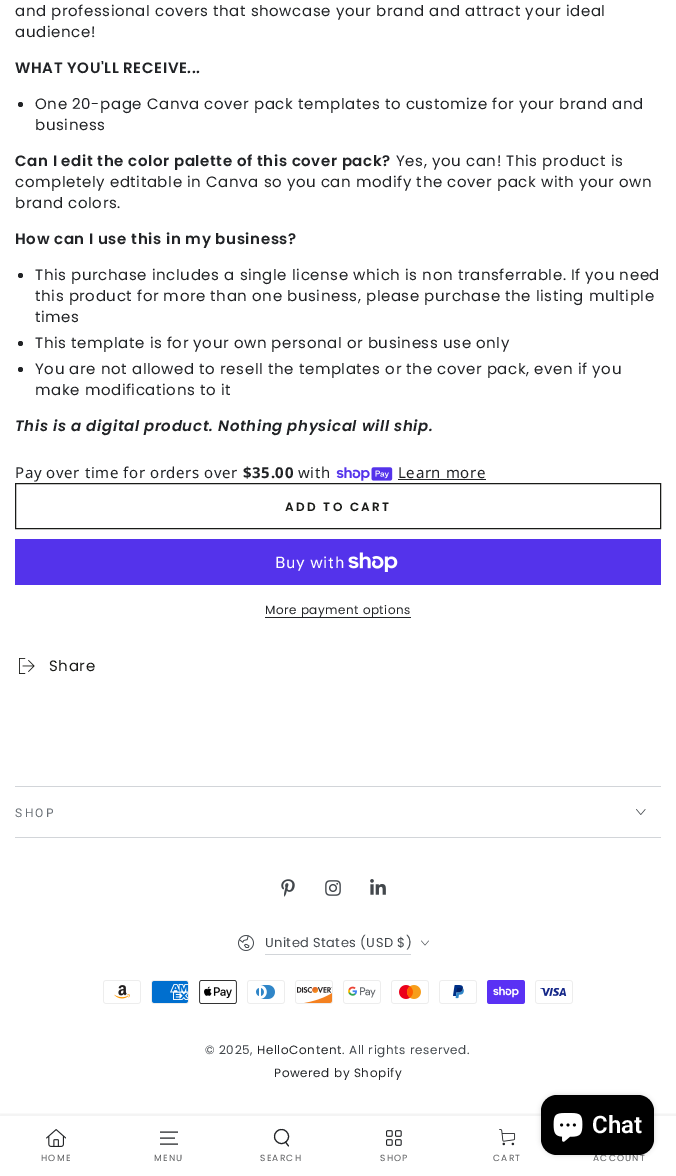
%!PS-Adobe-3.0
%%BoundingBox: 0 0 676 1176
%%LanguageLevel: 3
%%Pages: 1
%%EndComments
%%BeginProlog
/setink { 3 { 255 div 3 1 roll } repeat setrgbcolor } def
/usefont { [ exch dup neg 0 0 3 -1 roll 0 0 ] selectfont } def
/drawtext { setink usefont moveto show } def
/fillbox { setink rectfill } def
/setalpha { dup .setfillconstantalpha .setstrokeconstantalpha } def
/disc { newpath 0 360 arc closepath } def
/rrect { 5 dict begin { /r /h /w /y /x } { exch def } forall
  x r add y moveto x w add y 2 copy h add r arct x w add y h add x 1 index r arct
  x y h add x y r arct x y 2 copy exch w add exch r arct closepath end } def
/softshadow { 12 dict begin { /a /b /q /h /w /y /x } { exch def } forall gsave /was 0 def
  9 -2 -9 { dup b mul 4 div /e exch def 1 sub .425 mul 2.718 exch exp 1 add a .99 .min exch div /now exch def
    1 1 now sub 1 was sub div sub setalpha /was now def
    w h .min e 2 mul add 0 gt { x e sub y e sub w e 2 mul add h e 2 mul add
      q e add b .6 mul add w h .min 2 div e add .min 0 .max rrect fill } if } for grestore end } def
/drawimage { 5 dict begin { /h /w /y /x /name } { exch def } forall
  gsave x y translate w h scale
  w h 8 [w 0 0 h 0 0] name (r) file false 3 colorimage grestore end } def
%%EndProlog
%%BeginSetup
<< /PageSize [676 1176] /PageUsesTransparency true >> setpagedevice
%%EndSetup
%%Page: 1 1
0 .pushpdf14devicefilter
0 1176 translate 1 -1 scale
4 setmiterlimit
0 0 676 1176 255 255 255 fillbox
/Poppins-Regular 15 usefont
33 35 38 setink
15 16 moveto 0.6 0 (and professional covers that showcase your brand and attract your ideal) ashow
15 37 moveto 0.6 0 (audience!) ashow
/Poppins-SemiBold 15 usefont
15 73 moveto 0.6 0 (WHAT YOU'LL RECEIVE...) ashow
20.5 104.5 2.5 disc fill
/Poppins-Regular 15 usefont
35 109 moveto 0.6 0 (One 20-page Canva cover pack templates to customize for your brand and) ashow
35 130 moveto 0.6 0 (business) ashow
/Poppins-SemiBold 15 usefont
15 166 moveto 0.6 0 (Can I edit the color palette of this cover pack?) ashow
/Poppins-Regular 15 usefont
396 166 moveto 0.6 0 (Yes, you can! This product is) ashow
15 187 moveto 0.6 0 (completely edtitable in Canva so you can modify the cover pack with your own) ashow
15 208 moveto 0.6 0 (brand colors.) ashow
/Poppins-SemiBold 15 usefont
15 244 moveto 0.6 0 (How can I use this in my business?) ashow
20.5 275.5 2.5 disc fill
/Poppins-Regular 15 usefont
35 280 moveto 0.6 0 (This purchase includes a single license which is non transferrable. If you need) ashow
35 301 moveto 0.6 0 (this product for more than one business, please purchase the listing multiple) ashow
35 322 moveto 0.6 0 (times) ashow
20.5 343.5 2.5 disc fill
35 348 moveto 0.6 0 (This template is for your own personal or business use only) ashow
20.5 369.5 2.5 disc fill
35 374 moveto 0.6 0 (You are not allowed to resell the templates or the cover pack, even if you) ashow
35 395 moveto 0.6 0 (make modifications to it) ashow
/Poppins-SemiBoldItalic 15 usefont
15 431 moveto 0.6 0 (This is a digital product. Nothing physical will ship.) ashow
/NotoSans-Regular 15 usefont
15 478 moveto 0.6 0 (Pay over time for orders over) ashow
/NotoSans-Bold 15 usefont
243 478 moveto 0.6 0 ($35.00) ashow
/NotoSans-Regular 15 usefont
298 478 moveto 0.6 0 (with) ashow
(assets/img1.rgb) 336 467 57 14 drawimage
398 478 moveto 0.6 0 (Learn more) ashow
398 479 88 1 33 35 38 fillbox
26 27 24 setink
15.5 483.5 645 45 rectstroke
/Poppins-SemiBold 12 usefont
285 511 moveto 2.4 0 (ADD TO CART) ashow
15 539 646 46 84 51 235 fillbox
/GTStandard-Regular 16 usefont
255 255 255 setink
275 568 moveto 0.6 0 (Buy with) ashow
(assets/img2.rgb) 348 552 50 20 drawimage
265 617 146 1 33 35 38 fillbox
/Poppins-Regular 12 usefont
265 614 moveto 0.5 0 (More payment options) ashow
(assets/img3.rgb) 19 658 16 16 drawimage
/Poppins-Regular 15 usefont
26 27 24 setink
49 671 moveto 0.6 0 (Share) ashow
15 786 646 1 210 213 217 fillbox
15 837 646 1 210 213 217 fillbox
/Roboto-Regular 12 usefont
107 113 119 setink
15 817 moveto 2.4 0 (SHOP) ashow
(assets/img4.rgb) 636 809 10 6 drawimage
(assets/img5.rgb) 281 879 14 18 drawimage
(assets/img6.rgb) 325 880 16 16 drawimage
(assets/img7.rgb) 370 879 16 16 drawimage
(assets/img8.rgb) 238 935 16 16 drawimage
265 954 146 1 210 213 217 fillbox
/Poppins-Regular 13 usefont
66 71 76 setink
265 947 moveto 0.4 0 (United States \(USD $\)) ashow
(assets/img9.rgb) 421 940 8 6 drawimage
(assets/img10.rgb) 103 980 38 24 drawimage
(assets/img11.rgb) 151 980 38 24 drawimage
(assets/img12.rgb) 199 980 38 24 drawimage
(assets/img13.rgb) 247 980 38 24 drawimage
(assets/img14.rgb) 295 980 38 24 drawimage
(assets/img15.rgb) 343 980 38 24 drawimage
(assets/img16.rgb) 391 980 38 24 drawimage
(assets/img17.rgb) 439 980 38 24 drawimage
(assets/img18.rgb) 487 980 38 24 drawimage
(assets/img19.rgb) 535 980 38 24 drawimage
/Poppins-Regular 12 usefont
205 1054 moveto 0.6 0 (© 2025,) ashow
33 35 38 setink
257 1054 moveto 0.6 0 (HelloContent) ashow
66 71 76 setink
342 1054 moveto 0.6 0 (. All rights reserved.) ashow
33 35 38 setink
274 1077 moveto 0.6 0 (Powered by Shopify) ashow
gsave
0 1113 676 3 rectclip
0 1117 676 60 0 4 0.15 softshadow
grestore
(assets/img20.rgb) 46 1129 20 18 drawimage
/Poppins-Regular 9 usefont
89 90 92 setink
41 1161 moveto 1.25 0 (HOME) ashow
33 35 38 setink
1.1 setlinewidth
160 1144 moveto 178 1144 lineto 160 1138 moveto 175 1138 lineto 160 1132 moveto 178 1132 lineto stroke
89 90 92 setink
154 1161 moveto 1.25 0 (MENU) ashow
33 35 38 setink
281.5 1136.5 7 disc stroke
1 setlinecap
285.5 1142 moveto 288.5 1146 lineto stroke
89 90 92 setink
260 1161 moveto 1.25 0 (SEARCH) ashow
(assets/img21.rgb) 386 1130 16 16 drawimage
380 1161 moveto 1.25 0 (SHOP) ashow
(assets/img22.rgb) 499 1129 17 17 drawimage
493 1161 moveto 1.25 0 (CART) ashow
593 1161 moveto 1.25 0 (ACCOUNT) ashow
0 0 0 setink
541 1095 113 60 16 2.5 0.15 softshadow
541 1095 113 60 16 rrect fill
(assets/img23.rgb) 553 1113 30 29 drawimage
(Chat) 592 1133 /Roboto-SemiBold 24 255 255 255 drawtext
.poppdf14devicefilter showpage
%%EOF
